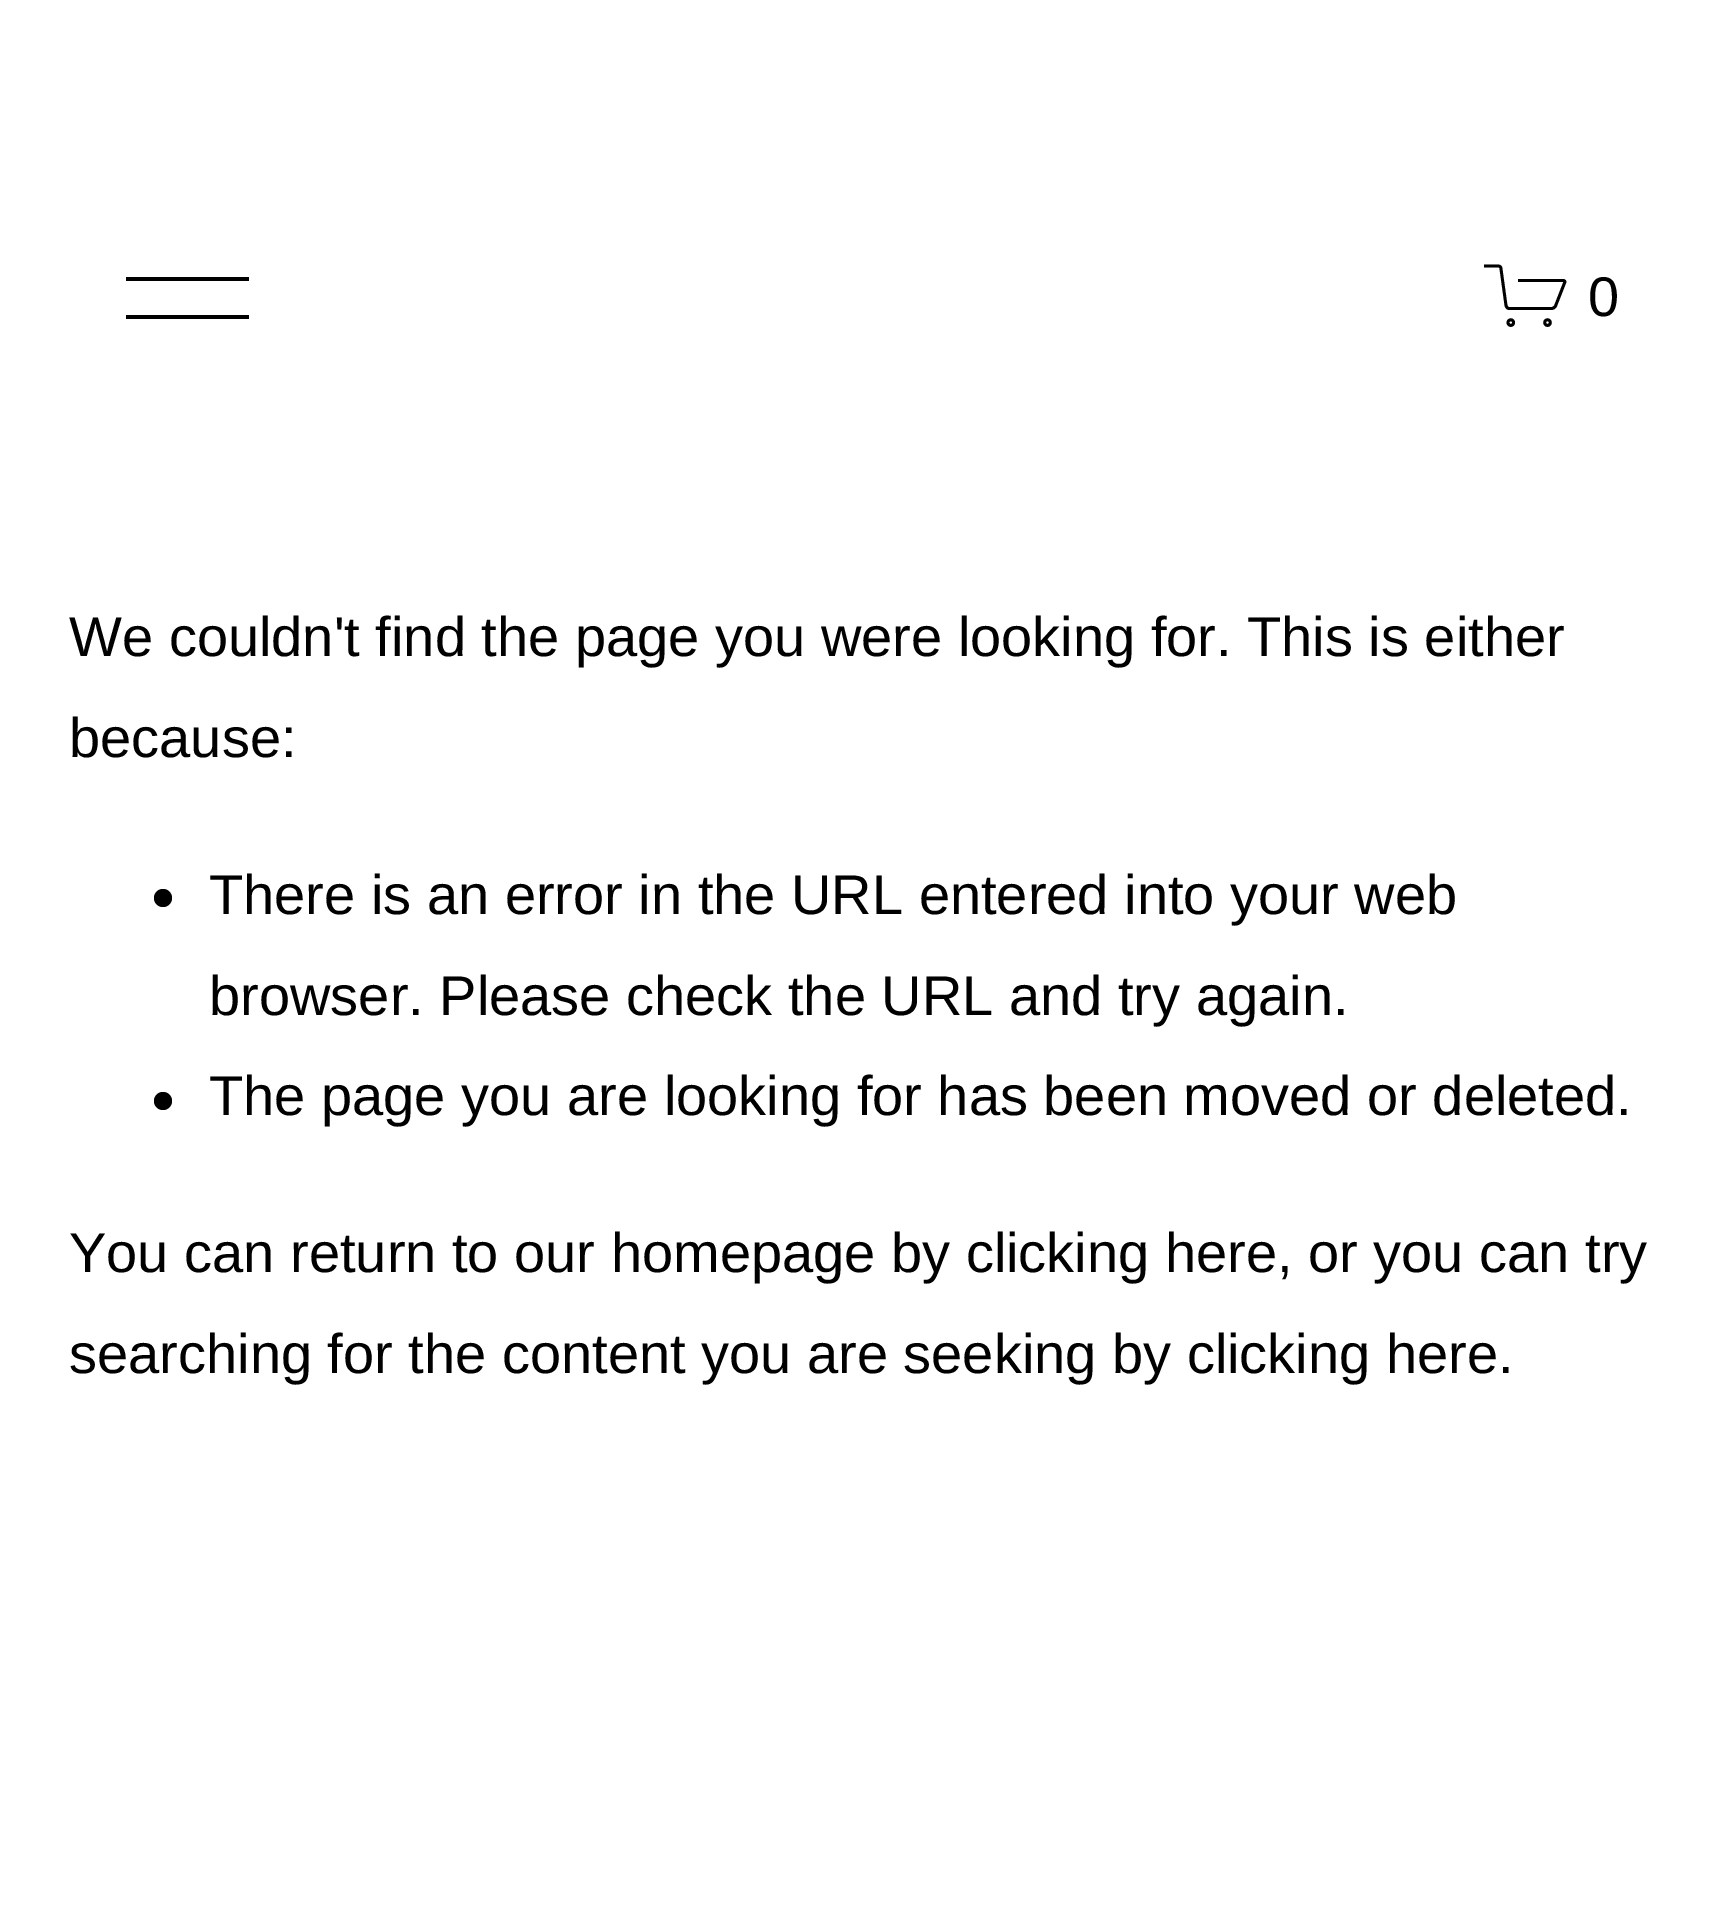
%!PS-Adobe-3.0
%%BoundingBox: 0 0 1720 1931
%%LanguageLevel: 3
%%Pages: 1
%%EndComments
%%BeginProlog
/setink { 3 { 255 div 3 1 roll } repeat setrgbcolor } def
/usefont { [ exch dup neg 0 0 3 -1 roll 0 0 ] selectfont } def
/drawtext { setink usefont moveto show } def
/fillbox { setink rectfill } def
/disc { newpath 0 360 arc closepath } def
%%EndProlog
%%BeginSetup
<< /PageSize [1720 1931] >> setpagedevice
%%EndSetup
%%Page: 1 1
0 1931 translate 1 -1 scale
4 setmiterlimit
0 0 1720 1931 255 255 255 fillbox
126 277 123 4 0 0 0 fillbox
126 315 123 4 0 0 0 fillbox
2.8 setlinewidth
1547.5 322.6 2.8 disc stroke
1510.8 322.6 2.8 disc stroke
1484 266 moveto 1498 266 lineto 1500 266 1501 267 1501 269 curveto 1506 305.5 lineto 1506.5 307 1507.5 308.5 1509 308.5 curveto 1551.5 308.5 lineto 1553 308.5 1555 307.5 1555.5 306 curveto 1564.5 283 lineto 1565.5 281.5 1564.5 280.5 1563 280.5 curveto 1518 280.5 lineto stroke
(0) 1588 316 /LiberationSans-Regular 56 0 0 0 drawtext
(We couldn't find the page you were looking for. This is either) 69 656 /LiberationSans-Regular 56 0 0 0 drawtext
(because:) 69 757 /LiberationSans-Regular 56 0 0 0 drawtext
163 898 9 disc fill
(There is an error in the URL entered into your web) 209 914 /LiberationSans-Regular 56 0 0 0 drawtext
(browser. Please check the URL and try again.) 209 1015 /LiberationSans-Regular 56 0 0 0 drawtext
163 1101 9 disc fill
(The page you are looking for has been moved or deleted.) 209 1115 /LiberationSans-Regular 56 0 0 0 drawtext
(You can return to our homepage by clicking here, or you can try) 69 1272 /LiberationSans-Regular 56 0 0 0 drawtext
(searching for the content you are seeking by clicking here.) 69 1373 /LiberationSans-Regular 56 0 0 0 drawtext
showpage
%%EOF
